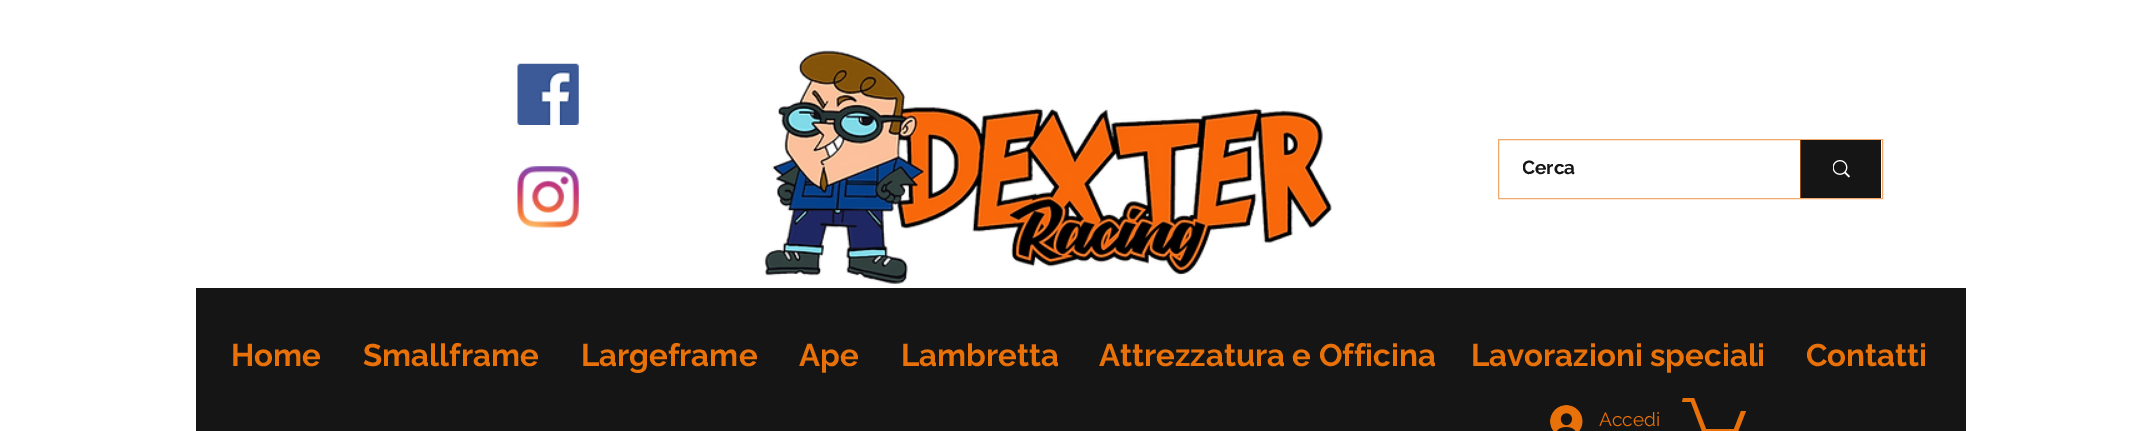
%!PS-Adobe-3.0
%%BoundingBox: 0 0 2138 431
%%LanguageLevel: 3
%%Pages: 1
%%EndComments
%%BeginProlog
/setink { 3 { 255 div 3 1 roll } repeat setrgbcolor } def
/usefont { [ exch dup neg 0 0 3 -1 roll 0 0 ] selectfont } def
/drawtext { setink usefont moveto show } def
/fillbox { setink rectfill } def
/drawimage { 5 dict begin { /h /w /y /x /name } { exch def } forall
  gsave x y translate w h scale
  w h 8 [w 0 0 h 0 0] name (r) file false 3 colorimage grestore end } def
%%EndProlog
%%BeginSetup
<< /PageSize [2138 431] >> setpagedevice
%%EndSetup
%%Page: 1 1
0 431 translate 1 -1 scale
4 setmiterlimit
0 0 2138 431 255 255 255 fillbox
(assets/img1.rgb) 517 63 62 62 drawimage
(assets/img2.rgb) 517 166 62 62 drawimage
(assets/img3.rgb) 764 50 568 234 drawimage
241 170 107 setink
1498.5 139.5 384 59 rectstroke
gsave
1523 158 225 22 rectclip
(Cerca) 1522 174 /Raleway-Bold 19 21 21 21 drawtext
grestore
1801 140 80 58 21 21 21 fillbox
1800 140 1 58 148 76 14 fillbox
(assets/img4.rgb) 1833 160 17 18 drawimage
196 288 1770 143 21 21 21 fillbox
(Home) 231 366 /Raleway-Bold 31.25 232 113 9 drawtext
(Smallframe) 363 366 /Raleway-Bold 31.25 232 113 9 drawtext
(Largeframe) 581 366 /Raleway-Bold 31.25 232 113 9 drawtext
(Ape) 799 366 /Raleway-Bold 31.25 232 113 9 drawtext
(Lambretta) 901 366 /Raleway-Bold 31.25 232 113 9 drawtext
(Attrezzatura e Officina) 1099 366 /Raleway-Bold 31.25 232 113 9 drawtext
(Lavorazioni speciali) 1471 366 /Raleway-Bold 31.25 232 113 9 drawtext
(Contatti) 1806 366 /Raleway-Bold 31.25 232 113 9 drawtext
(assets/img5.rgb) 1550 405 33 26 drawimage
(Accedi) 1599 426 /Raleway-Regular 19 232 113 9 drawtext
1746 411 moveto 1737 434 lineto 1703 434 lineto 1691 402 lineto 1682 402 lineto 1683 398 lineto 1694 398 lineto 1706 429 lineto 1734 429 lineto 1741 411 lineto fill
showpage
%%EOF
